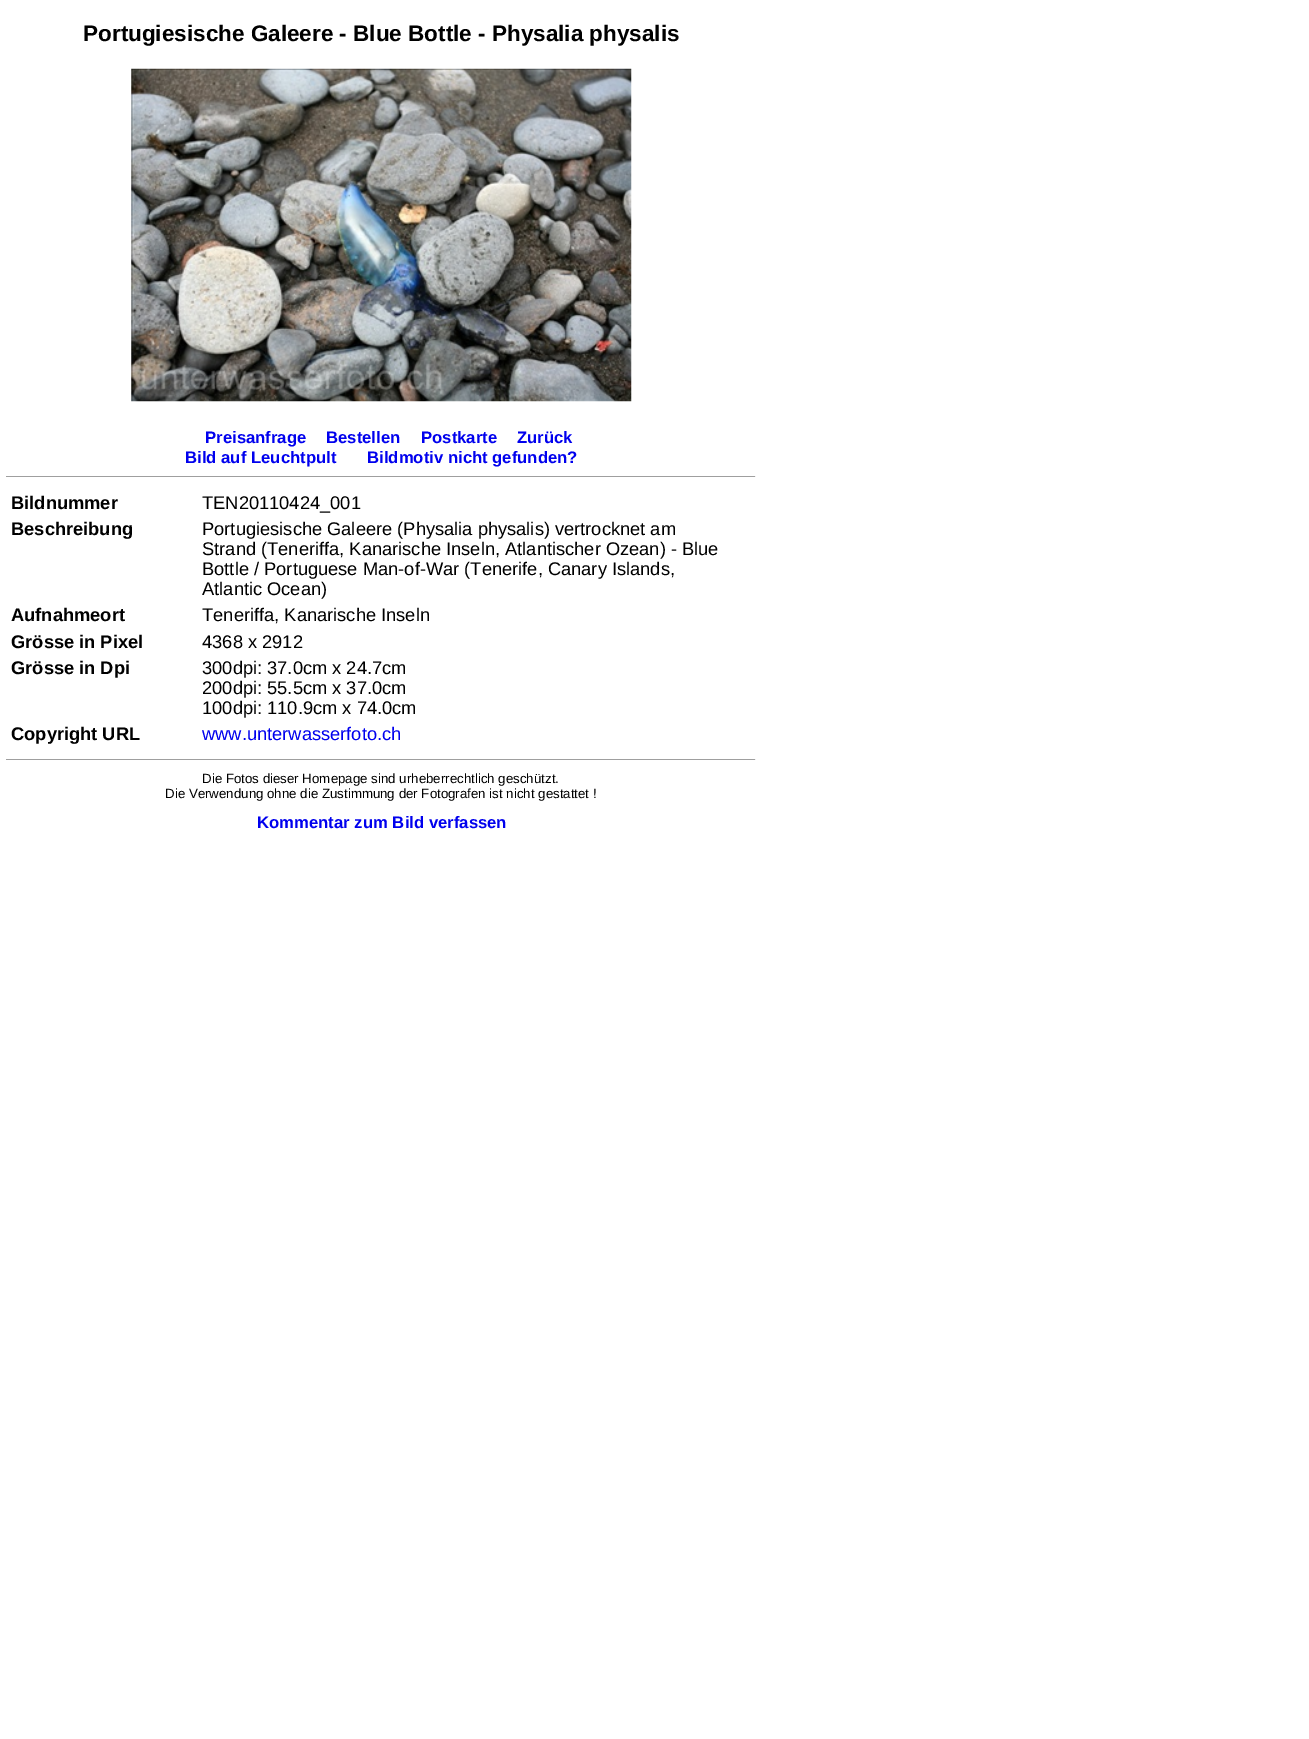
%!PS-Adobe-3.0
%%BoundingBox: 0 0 1309 1739
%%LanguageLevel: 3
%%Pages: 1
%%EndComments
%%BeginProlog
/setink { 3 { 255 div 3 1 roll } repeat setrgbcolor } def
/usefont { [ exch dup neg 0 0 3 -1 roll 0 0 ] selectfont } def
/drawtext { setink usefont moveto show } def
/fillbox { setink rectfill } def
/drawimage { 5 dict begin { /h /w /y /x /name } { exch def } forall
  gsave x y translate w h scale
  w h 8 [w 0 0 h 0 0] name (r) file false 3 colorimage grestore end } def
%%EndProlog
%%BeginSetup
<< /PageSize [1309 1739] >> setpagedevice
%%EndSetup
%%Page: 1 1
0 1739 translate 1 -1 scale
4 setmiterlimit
0 0 1309 1739 255 255 255 fillbox
(Portugiesische Galeere - Blue Bottle - Physalia physalis) 83 41 /LiberationSans-Bold 22.5 0 0 0 drawtext
(assets/img1.rgb) 131 68 501 334 drawimage
(Preisanfrage) 205 443 /LiberationSans-Bold 16.7 0 0 238 drawtext
(Bestellen) 326 443 /LiberationSans-Bold 16.7 0 0 238 drawtext
(Postkarte) 421 443 /LiberationSans-Bold 16.7 0 0 238 drawtext
(Zurück) 517 443 /LiberationSans-Bold 16.7 0 0 238 drawtext
(Bild auf Leuchtpult) 185 463 /LiberationSans-Bold 16.7 0 0 238 drawtext
(Bildmotiv nicht gefunden?) 367 463 /LiberationSans-Bold 16.7 0 0 238 drawtext
6 476 750 1 159 159 159 fillbox
755 476 1 1 238 238 238 fillbox
(Bildnummer) 11 509 /LiberationSans-Bold 18.3 0 0 0 drawtext
(TEN20110424_001) 202 509 /LiberationSans-Regular 18.3 0 0 0 drawtext
(Beschreibung) 11 535 /LiberationSans-Bold 18.3 0 0 0 drawtext
(Portugiesische Galeere \(Physalia physalis\) vertrocknet am) 202 535 /LiberationSans-Regular 18.3 0 0 0 drawtext
(Strand \(Teneriffa, Kanarische Inseln, Atlantischer Ozean\) - Blue) 202 555 /LiberationSans-Regular 18.3 0 0 0 drawtext
(Bottle / Portuguese Man-of-War \(Tenerife, Canary Islands,) 202 575 /LiberationSans-Regular 18.3 0 0 0 drawtext
(Atlantic Ocean\)) 202 595 /LiberationSans-Regular 18.3 0 0 0 drawtext
(Aufnahmeort) 11 621 /LiberationSans-Bold 18.3 0 0 0 drawtext
(Teneriffa, Kanarische Inseln) 202 621 /LiberationSans-Regular 18.3 0 0 0 drawtext
(Grösse in Pixel) 11 648 /LiberationSans-Bold 18.3 0 0 0 drawtext
(4368 x 2912) 202 648 /LiberationSans-Regular 18.3 0 0 0 drawtext
(Grösse in Dpi) 11 674 /LiberationSans-Bold 18.3 0 0 0 drawtext
(300dpi: 37.0cm x 24.7cm) 202 674 /LiberationSans-Regular 18.3 0 0 0 drawtext
(200dpi: 55.5cm x 37.0cm) 202 694 /LiberationSans-Regular 18.3 0 0 0 drawtext
(100dpi: 110.9cm x 74.0cm) 202 714 /LiberationSans-Regular 18.3 0 0 0 drawtext
(Copyright URL) 11 740 /LiberationSans-Bold 18.3 0 0 0 drawtext
(www.unterwasserfoto.ch) 202 740 /LiberationSans-Regular 18.3 0 0 238 drawtext
6 759 750 1 159 159 159 fillbox
755 759 1 1 238 238 238 fillbox
(Die Fotos dieser Homepage sind urheberrechtlich geschützt.) 202 783 /LiberationSans-Regular 13.3 0 0 0 drawtext
(Die Verwendung ohne die Zustimmung der Fotografen ist nicht gestattet !) 165 798 /LiberationSans-Regular 13.3 0 0 0 drawtext
(Kommentar zum Bild verfassen) 257 828 /LiberationSans-Bold 16.7 0 0 238 drawtext
showpage
%%EOF
